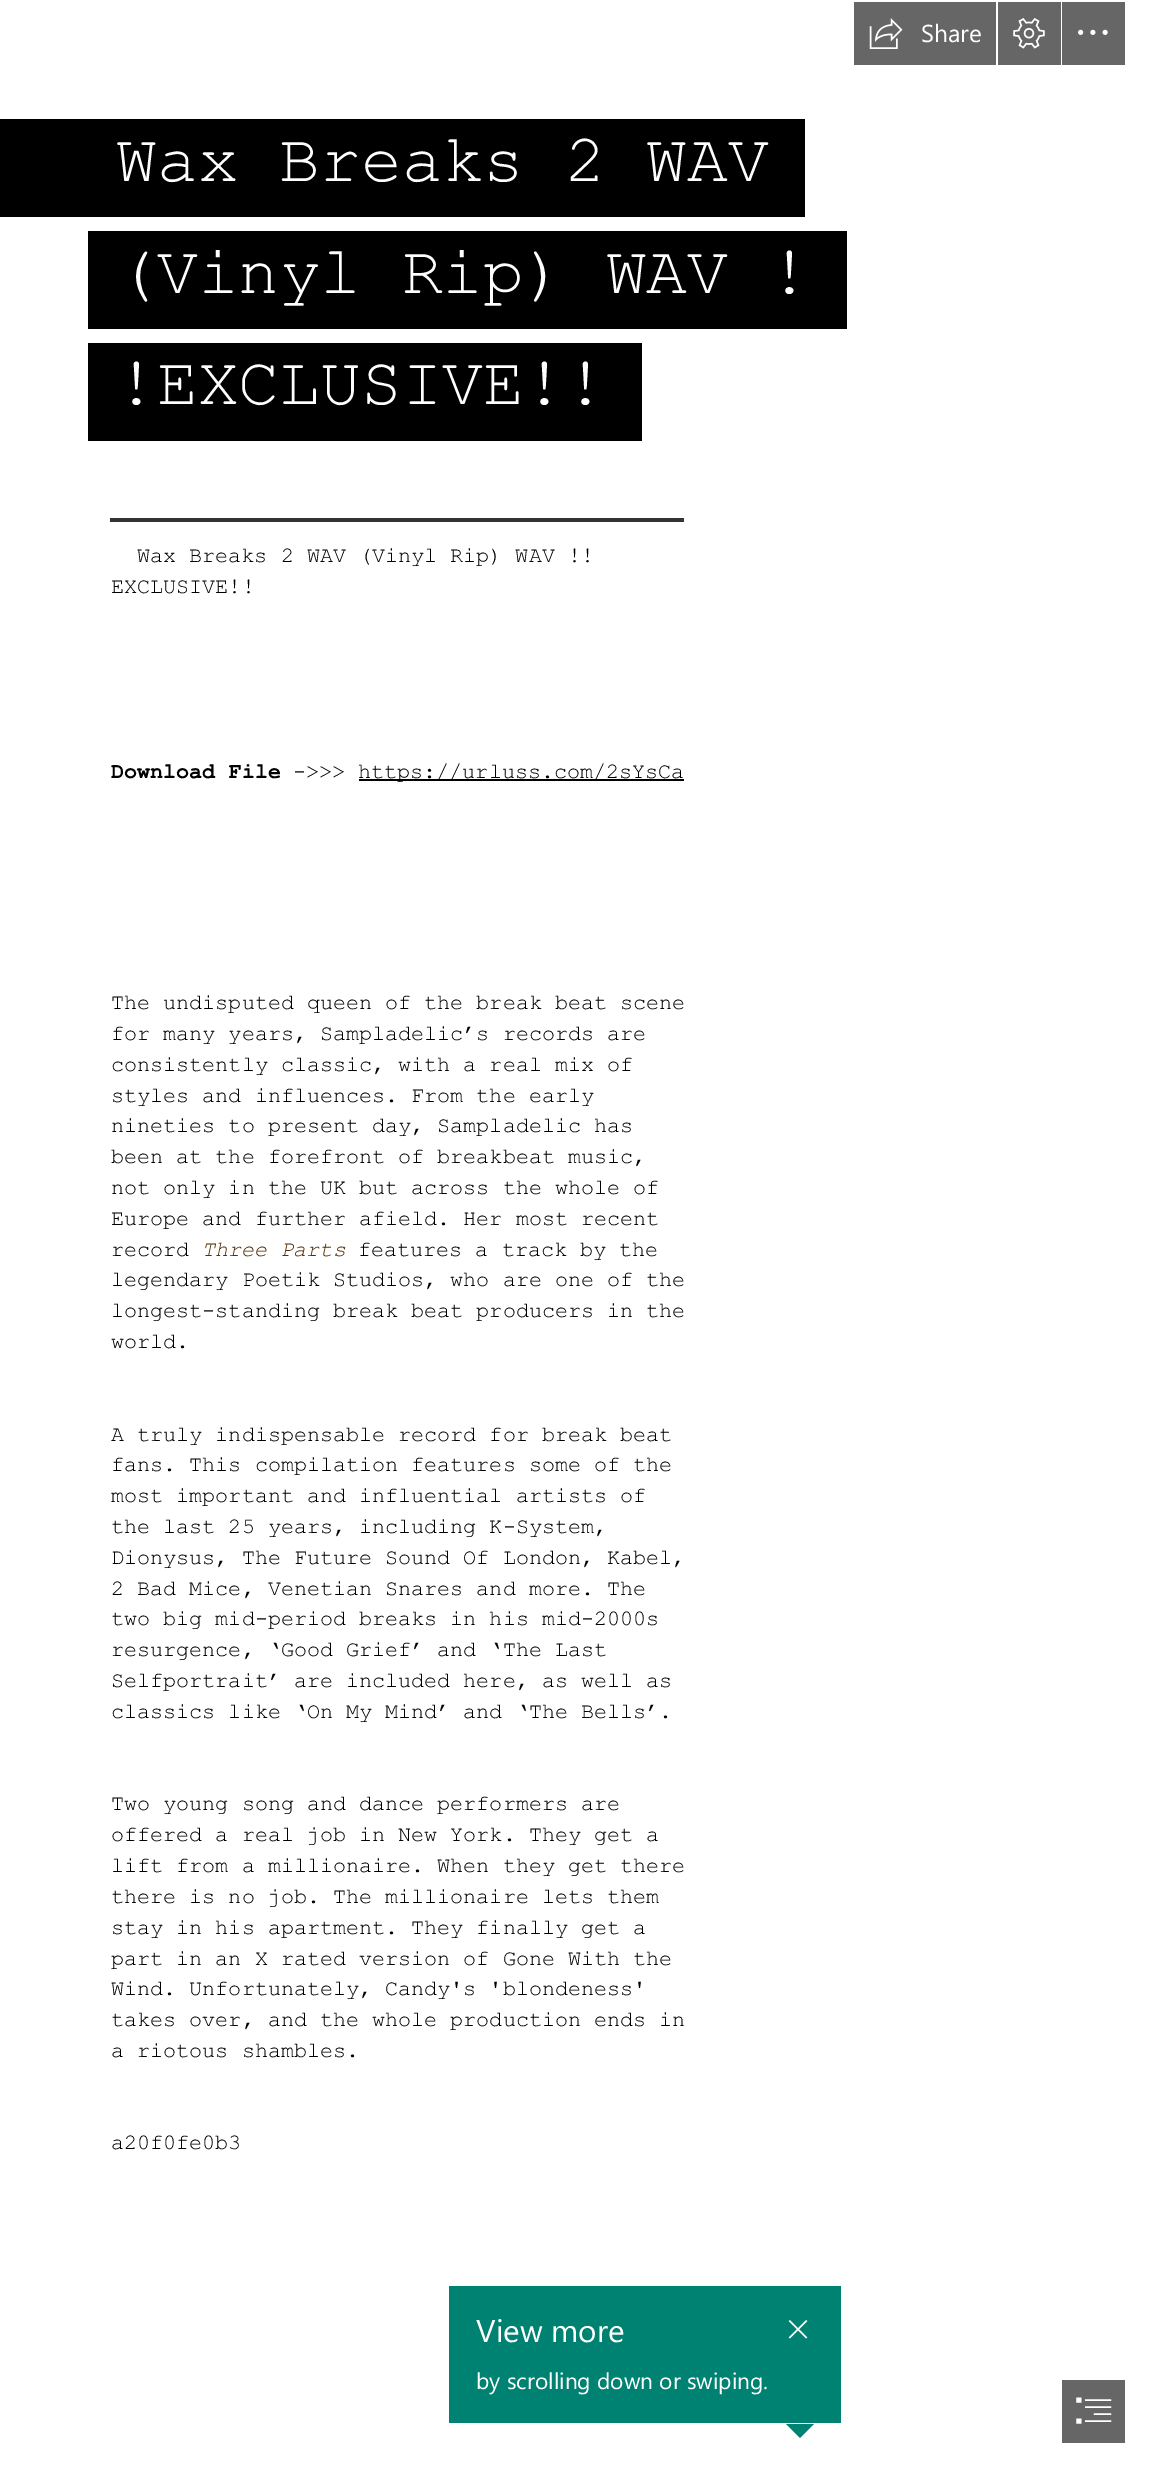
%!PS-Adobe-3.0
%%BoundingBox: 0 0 1160 2479
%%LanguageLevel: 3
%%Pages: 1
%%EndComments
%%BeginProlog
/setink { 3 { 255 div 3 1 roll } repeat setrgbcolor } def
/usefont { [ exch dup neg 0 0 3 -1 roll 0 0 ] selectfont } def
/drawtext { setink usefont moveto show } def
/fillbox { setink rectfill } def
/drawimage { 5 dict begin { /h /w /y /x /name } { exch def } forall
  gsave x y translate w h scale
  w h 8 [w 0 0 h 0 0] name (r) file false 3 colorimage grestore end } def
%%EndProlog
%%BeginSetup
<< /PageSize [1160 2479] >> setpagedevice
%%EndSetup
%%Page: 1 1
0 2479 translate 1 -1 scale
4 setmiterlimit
0 0 1160 2479 255 255 255 fillbox
854 2 142 63 102 102 102 fillbox
(assets/img1.rgb) 869 18 34 31 drawimage
(Share) 921 42 /SegoeUI-Regular 24.5 255 255 255 drawtext
998 2 63 63 102 102 102 fillbox
(assets/img2.rgb) 1013 18 32 31 drawimage
1062 2 63 63 102 102 102 fillbox
(assets/img3.rgb) 1078 29 30 6 drawimage
0 119 805 98 0 0 0 fillbox
(Wax Breaks 2 WAV) 116 181 /CourierNew-Regular 68 255 255 255 drawtext
88 231 759 98 0 0 0 fillbox
(\(Vinyl Rip\) WAV !) 116 293 /CourierNew-Regular 68 255 255 255 drawtext
88 343 554 98 0 0 0 fillbox
(!EXCLUSIVE!!) 116 404 /CourierNew-Regular 68 255 255 255 drawtext
110 518 574 4 51 51 51 fillbox
(Wax Breaks 2 WAV \(Vinyl Rip\) WAV !!) 137 562 /CourierNew-Regular 21.75 0 0 0 drawtext
(EXCLUSIVE!!) 111 593 /CourierNew-Regular 21.75 0 0 0 drawtext
(Download File) 111 778 /CourierNew-Bold 21.75 0 0 0 drawtext
(->>>) 293 778 /CourierNew-Regular 21.75 0 0 0 drawtext
359 779 325 2 0 0 0 fillbox
(https://urluss.com/2sYsCa) 358 778 /CourierNew-Regular 21.75 0 0 0 drawtext
(The undisputed queen of the break beat scene) 111 1009 /CourierNew-Regular 21.75 0 0 0 drawtext
(for many years, Sampladelic’s records are) 111 1040 /CourierNew-Regular 21.75 0 0 0 drawtext
(consistently classic, with a real mix of) 111 1071 /CourierNew-Regular 21.75 0 0 0 drawtext
(styles and influences. From the early) 111 1102 /CourierNew-Regular 21.75 0 0 0 drawtext
(nineties to present day, Sampladelic has) 111 1132 /CourierNew-Regular 21.75 0 0 0 drawtext
(been at the forefront of breakbeat music,) 111 1163 /CourierNew-Regular 21.75 0 0 0 drawtext
(not only in the UK but across the whole of) 111 1194 /CourierNew-Regular 21.75 0 0 0 drawtext
(Europe and further afield. Her most recent) 111 1225 /CourierNew-Regular 21.75 0 0 0 drawtext
(record) 111 1256 /CourierNew-Regular 21.75 0 0 0 drawtext
(Three Parts) 202 1256 /CourierNew-Italic 21.75 84 45 4 drawtext
(features a track by the) 358 1256 /CourierNew-Regular 21.75 0 0 0 drawtext
(legendary Poetik Studios, who are one of the) 111 1286 /CourierNew-Regular 21.75 0 0 0 drawtext
(longest-standing break beat producers in the) 111 1317 /CourierNew-Regular 21.75 0 0 0 drawtext
(world.) 111 1348 /CourierNew-Regular 21.75 0 0 0 drawtext
(A truly indispensable record for break beat) 111 1441 /CourierNew-Regular 21.75 0 0 0 drawtext
(fans. This compilation features some of the) 111 1471 /CourierNew-Regular 21.75 0 0 0 drawtext
(most important and influential artists of) 111 1502 /CourierNew-Regular 21.75 0 0 0 drawtext
(the last 25 years, including K-System,) 111 1533 /CourierNew-Regular 21.75 0 0 0 drawtext
(Dionysus, The Future Sound Of London, Kabel,) 111 1564 /CourierNew-Regular 21.75 0 0 0 drawtext
(2 Bad Mice, Venetian Snares and more. The) 111 1595 /CourierNew-Regular 21.75 0 0 0 drawtext
(two big mid-period breaks in his mid-2000s) 111 1625 /CourierNew-Regular 21.75 0 0 0 drawtext
(resurgence, ‘Good Grief’ and ‘The Last) 111 1656 /CourierNew-Regular 21.75 0 0 0 drawtext
(Selfportrait’ are included here, as well as) 111 1687 /CourierNew-Regular 21.75 0 0 0 drawtext
(classics like ‘On My Mind’ and ‘The Bells’.) 111 1718 /CourierNew-Regular 21.75 0 0 0 drawtext
(Two young song and dance performers are) 111 1810 /CourierNew-Regular 21.75 0 0 0 drawtext
(offered a real job in New York. They get a) 111 1841 /CourierNew-Regular 21.75 0 0 0 drawtext
(lift from a millionaire. When they get there) 111 1872 /CourierNew-Regular 21.75 0 0 0 drawtext
(there is no job. The millionaire lets them) 111 1903 /CourierNew-Regular 21.75 0 0 0 drawtext
(stay in his apartment. They finally get a) 111 1934 /CourierNew-Regular 21.75 0 0 0 drawtext
(part in an X rated version of Gone With the) 111 1965 /CourierNew-Regular 21.75 0 0 0 drawtext
(Wind. Unfortunately, Candy's 'blondeness') 111 1995 /CourierNew-Regular 21.75 0 0 0 drawtext
(takes over, and the whole production ends in) 111 2026 /CourierNew-Regular 21.75 0 0 0 drawtext
(a riotous shambles.) 111 2057 /CourierNew-Regular 21.75 0 0 0 drawtext
(a20f0fe0b3) 111 2149 /CourierNew-Regular 21.75 0 0 0 drawtext
449 2286 392 137 0 130 114 fillbox
(View more) 476 2342 /SegoeUI-Regular 31.5 255 255 255 drawtext
(by scrolling down or swiping.) 476 2389 /SegoeUI-Regular 22.75 255 255 255 drawtext
(assets/img4.rgb) 788 2320 20 19 drawimage
0 130 114 setink
786 2424 moveto 814 2424 lineto 800 2438 lineto closepath fill
1062 2380 63 63 102 102 102 fillbox
(assets/img5.rgb) 1076 2397 36 27 drawimage
showpage
%%EOF
